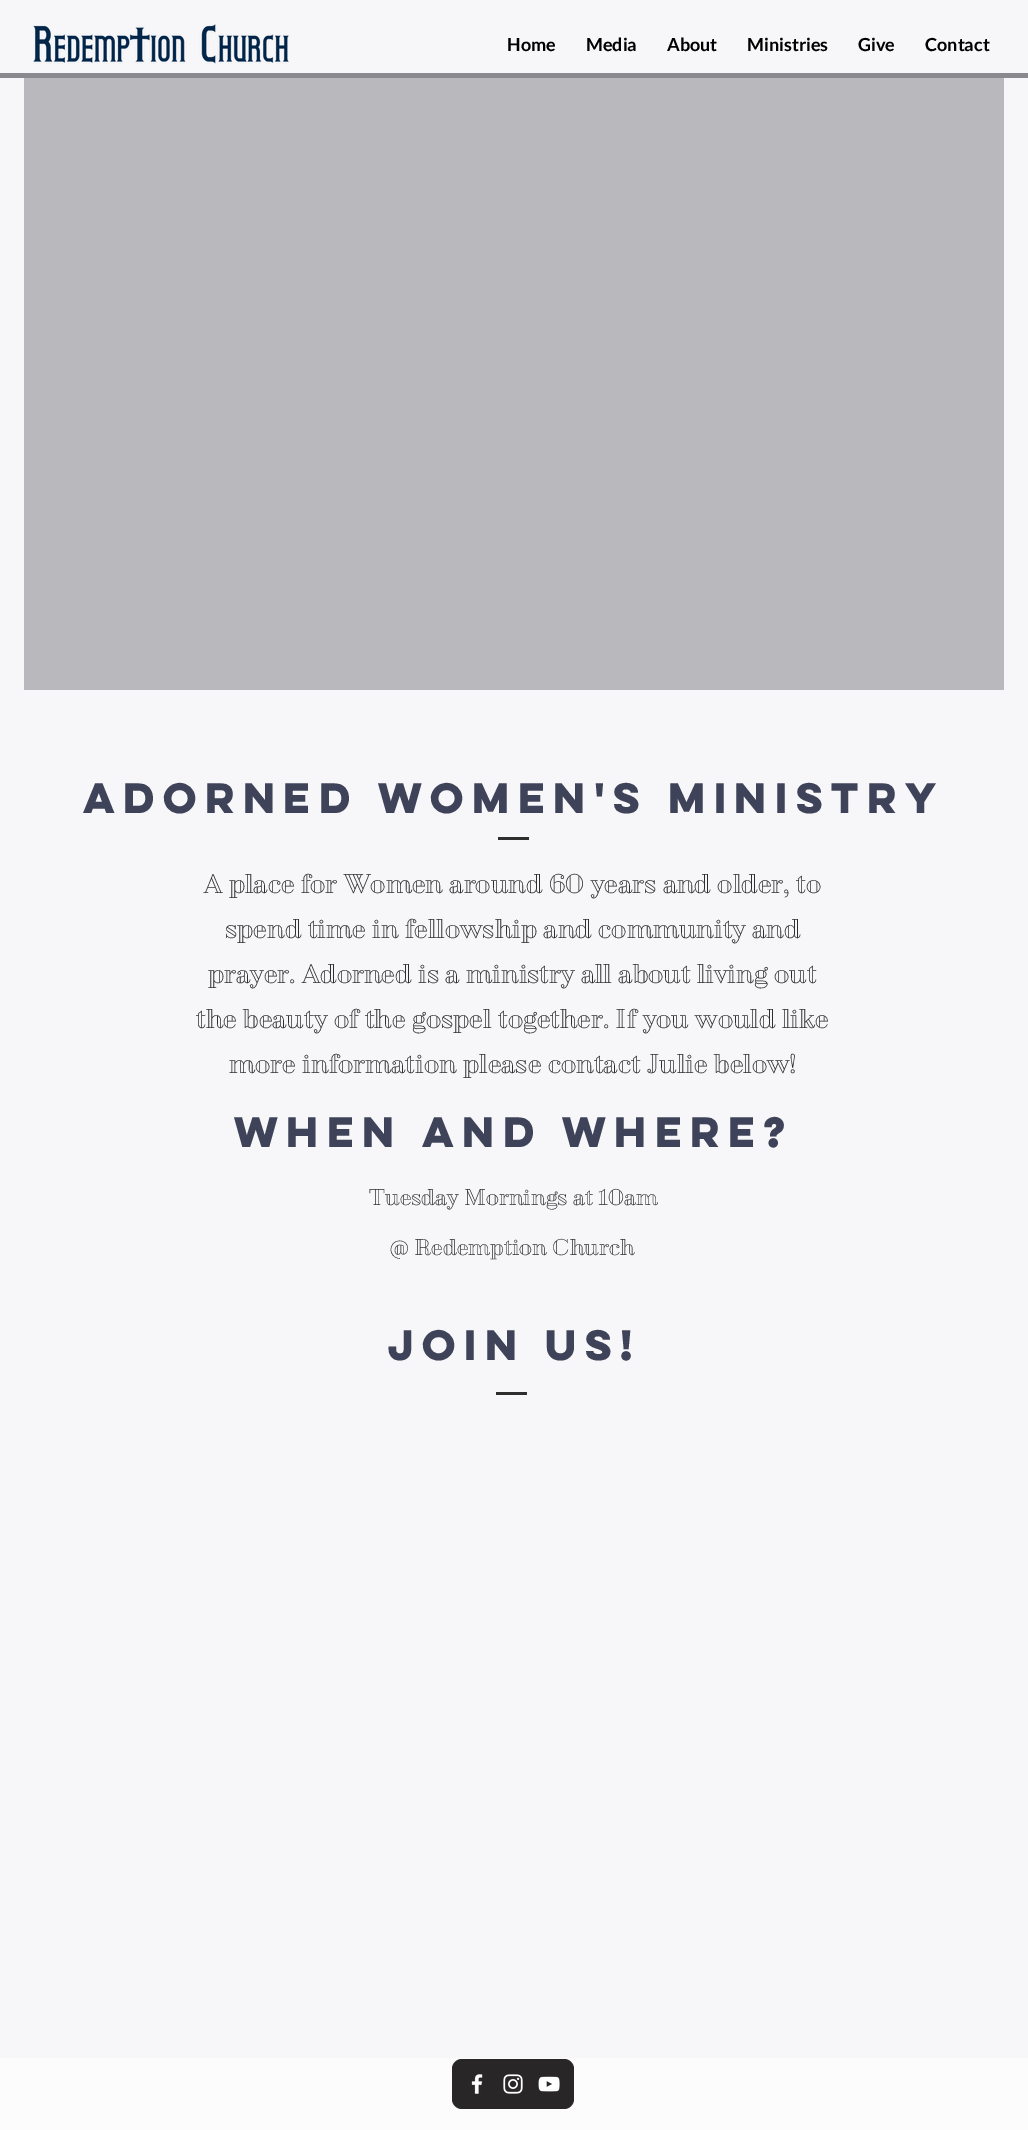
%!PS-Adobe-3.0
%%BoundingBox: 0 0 1028 2130
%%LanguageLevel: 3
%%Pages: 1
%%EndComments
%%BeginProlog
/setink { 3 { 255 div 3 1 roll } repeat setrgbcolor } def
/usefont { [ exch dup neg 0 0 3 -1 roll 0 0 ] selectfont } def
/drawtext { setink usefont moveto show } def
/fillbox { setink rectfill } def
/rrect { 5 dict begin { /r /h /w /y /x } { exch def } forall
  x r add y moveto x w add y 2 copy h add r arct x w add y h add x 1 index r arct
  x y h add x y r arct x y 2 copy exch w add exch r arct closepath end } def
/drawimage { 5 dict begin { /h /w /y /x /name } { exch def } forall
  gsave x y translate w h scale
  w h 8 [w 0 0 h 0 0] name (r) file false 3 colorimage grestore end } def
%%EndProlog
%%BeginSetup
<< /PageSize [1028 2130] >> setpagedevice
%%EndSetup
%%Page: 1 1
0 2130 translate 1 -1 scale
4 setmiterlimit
0 0 1028 2130 247 247 249 fillbox
(assets/img1.rgb) 33 23 256 41 drawimage
(Home) 507 51 /Lato-Bold 18 0 0 0 drawtext
(Media) 586 51 /Lato-Bold 18 0 0 0 drawtext
(About) 667 51 /Lato-Bold 18 0 0 0 drawtext
(Ministries) 747 51 /Lato-Bold 18 0 0 0 drawtext
(Give) 858 51 /Lato-Bold 18 0 0 0 drawtext
(Contact) 925 51 /Lato-Bold 18 0 0 0 drawtext
0 73 1028 5 138 138 142 fillbox
24 78 980 612 184 184 189 fillbox
(Adorned Women's Ministry) 83 813 /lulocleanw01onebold-Bold 38 63 67 89 drawtext
498 837 31 3 46 46 47 fillbox
(A place for Women around 60 years and older, to) 204 893 /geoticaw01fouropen-Bold 25 46 46 47 drawtext
(spend time in fellowship and community and) 225 938 /geoticaw01fouropen-Bold 25 46 46 47 drawtext
(prayer. Adorned is a ministry all about living out) 208 983 /geoticaw01fouropen-Bold 25 46 46 47 drawtext
(the beauty of the gospel together. If you would like) 196 1028 /geoticaw01fouropen-Bold 25 46 46 47 drawtext
(more information please contact Julie below!) 229 1073 /geoticaw01fouropen-Bold 25 46 46 47 drawtext
(When and Where?) 234 1147 /lulocleanw01onebold-Bold 38 63 67 89 drawtext
(Tuesday Mornings at 10am) 369 1205 /geoticaw01fouropen-Bold 21 46 46 47 drawtext
(@ Redemption Church) 390 1255 /geoticaw01fouropen-Bold 21 46 46 47 drawtext
(Join us!) 388 1360 /lulocleanw01onebold-Bold 38 63 67 89 drawtext
496 1392 31 3 46 46 47 fillbox
0 2058 1028 72 252 252 253 fillbox
40 38 38 setink
452 2059 122 50 10 rrect fill
(assets/img2.rgb) 471 2074 12 20 drawimage
(assets/img3.rgb) 503 2074 20 20 drawimage
(assets/img4.rgb) 538 2076 22 16 drawimage
showpage
%%EOF
